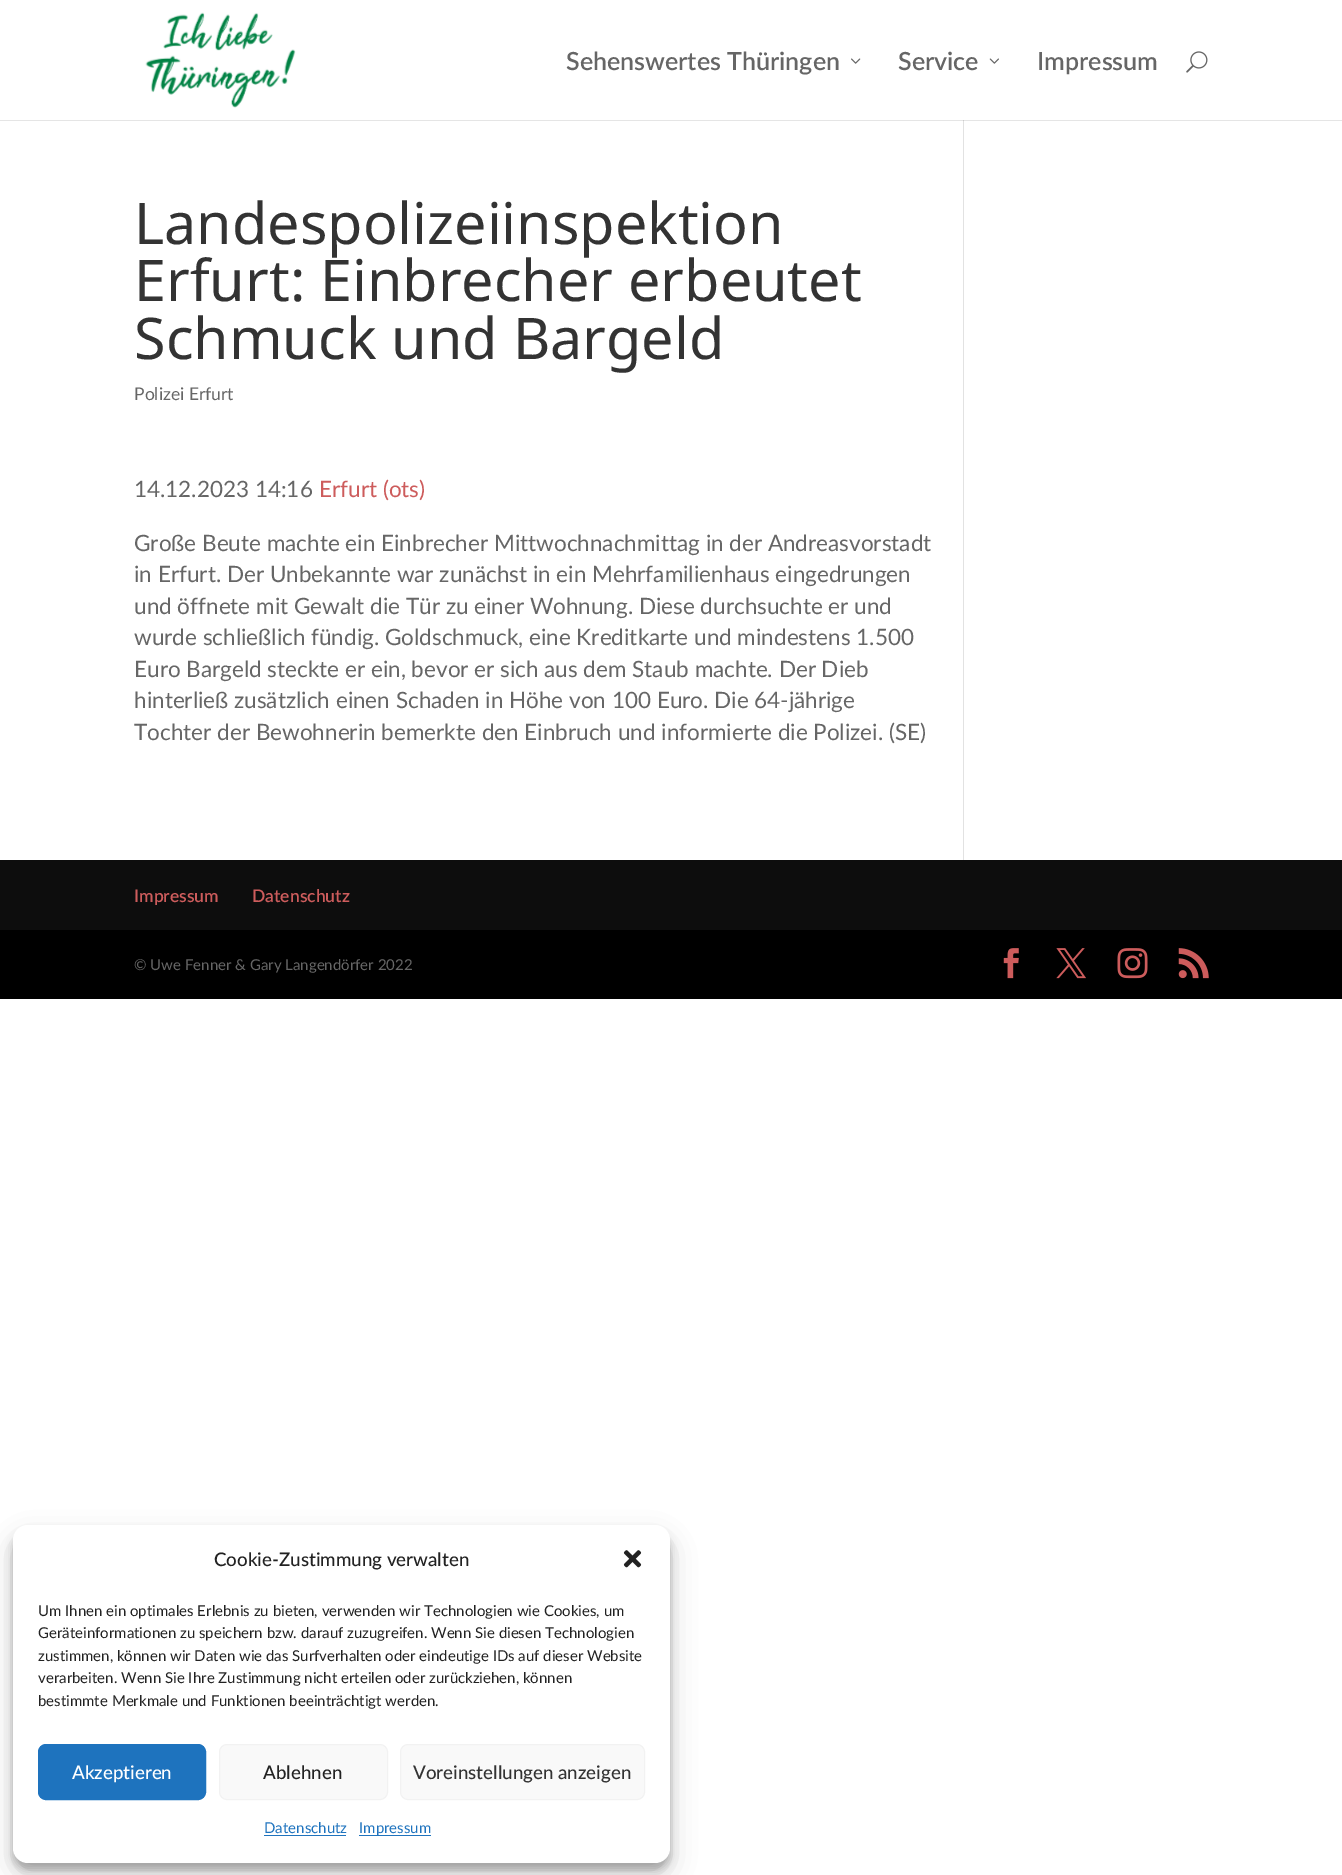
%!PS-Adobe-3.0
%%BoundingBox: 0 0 1342 1875
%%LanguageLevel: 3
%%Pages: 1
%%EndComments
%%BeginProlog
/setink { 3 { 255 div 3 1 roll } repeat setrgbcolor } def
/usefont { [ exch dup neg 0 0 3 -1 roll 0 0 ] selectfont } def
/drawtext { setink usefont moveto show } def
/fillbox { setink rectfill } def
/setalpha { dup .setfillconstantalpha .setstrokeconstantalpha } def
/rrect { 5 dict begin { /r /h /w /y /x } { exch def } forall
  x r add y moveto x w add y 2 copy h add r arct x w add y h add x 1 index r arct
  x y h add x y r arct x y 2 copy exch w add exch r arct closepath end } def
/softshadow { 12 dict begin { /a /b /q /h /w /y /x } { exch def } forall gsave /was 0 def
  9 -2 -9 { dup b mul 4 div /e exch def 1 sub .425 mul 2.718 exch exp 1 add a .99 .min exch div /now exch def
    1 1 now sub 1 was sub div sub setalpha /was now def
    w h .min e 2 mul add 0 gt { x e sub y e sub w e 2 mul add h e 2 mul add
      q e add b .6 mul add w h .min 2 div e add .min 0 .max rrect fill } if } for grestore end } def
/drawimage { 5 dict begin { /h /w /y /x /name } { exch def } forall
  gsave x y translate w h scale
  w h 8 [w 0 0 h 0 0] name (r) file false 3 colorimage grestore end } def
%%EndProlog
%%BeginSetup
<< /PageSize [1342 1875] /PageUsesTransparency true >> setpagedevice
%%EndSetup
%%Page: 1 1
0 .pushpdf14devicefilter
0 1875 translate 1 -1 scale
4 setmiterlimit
0 0 1342 1875 255 255 255 fillbox
963 120 1 740 226 226 226 fillbox
0.1 setalpha
0 0 0 setink
0 120 moveto 0 121 lineto 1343 121 lineto 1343 1 lineto 1342 1 lineto 1342 120 lineto closepath fill
1 setalpha
(assets/img1.rgb) 145 12 151 96 drawimage
(Sehenswertes Thüringen) 566 70 /Lato-SemiBold 25 102 102 102 drawtext
(assets/img2.rgb) 851 58 10 6 drawimage
(Service) 898 70 /Lato-SemiBold 25 102 102 102 drawtext
(assets/img3.rgb) 989 58 10 6 drawimage
(Impressum) 1037 70 /Lato-SemiBold 25 102 102 102 drawtext
(assets/img4.rgb) 1186 51 22 22 drawimage
(Landespolizeiinspektion) 134 244 /NotoSans-Regular 57.5 51 51 51 drawtext
(Erfurt: Einbrecher erbeutet) 134 301 /NotoSans-Regular 57.5 51 51 51 drawtext
(Schmuck und Bargeld) 134 359 /NotoSans-Regular 57.5 51 51 51 drawtext
(Polizei Erfurt) 134 400 /Lato-Regular 17.5 102 102 102 drawtext
(14.12.2023 14:16) 134 497 /Lato-Regular 22.5 102 102 102 drawtext
(Erfurt \(ots\)) 319 497 /Lato-Regular 22.5 205 92 92 drawtext
(Große Beute machte ein Einbrecher Mittwochnachmittag in der Andreasvorstadt) 134 551 /Lato-Regular 22.5 102 102 102 drawtext
(in Erfurt. Der Unbekannte war zunächst in ein Mehrfamilienhaus eingedrungen) 134 582 /Lato-Regular 22.5 102 102 102 drawtext
(und öffnete mit Gewalt die Tür zu einer Wohnung. Diese durchsuchte er und) 134 614 /Lato-Regular 22.5 102 102 102 drawtext
(wurde schließlich fündig. Goldschmuck, eine Kreditkarte und mindestens 1.500) 134 645 /Lato-Regular 22.5 102 102 102 drawtext
(Euro Bargeld steckte er ein, bevor er sich aus dem Staub machte. Der Dieb) 134 677 /Lato-Regular 22.5 102 102 102 drawtext
(hinterließ zusätzlich einen Schaden in Höhe von 100 Euro. Die 64-jährige) 134 708 /Lato-Regular 22.5 102 102 102 drawtext
(Tochter der Bewohnerin bemerkte den Einbruch und informierte die Polizei. \(SE\)) 134 740 /Lato-Regular 22.5 102 102 102 drawtext
0 930 1342 69 0 0 0 fillbox
0 860 1342 70 13 13 13 fillbox
(Impressum) 134 902 /Lato-SemiBold 17.5 205 92 92 drawtext
(Datenschutz) 252 902 /Lato-SemiBold 17.5 205 92 92 drawtext
(© Uwe Fenner & Gary Langendörfer 2022) 134 970 /Lato-Regular 15 102 102 102 drawtext
(assets/img5.rgb) 1003 948 16 31 drawimage
(assets/img6.rgb) 1056 948 30 31 drawimage
(assets/img7.rgb) 1117 948 31 31 drawimage
(assets/img8.rgb) 1178 948 31 31 drawimage
0 0 0 setink
13 1533 657 337 15 4 0.23 softshadow
13 1538 657 337 15 12.5 0.19 softshadow
255 255 255 setink
13 1525 657 338 15 rrect fill
(Cookie-Zustimmung verwalten) 214 1566 /Lato-Medium 18.75 34 34 34 drawtext
(assets/img9.rgb) 623 1550 19 18 drawimage
(Um Ihnen ein optimales Erlebnis zu bieten, verwenden wir Technologien wie Cookies, um) 38 1616 /Lato-Regular 15 34 34 34 drawtext
(Geräteinformationen zu speichern bzw. darauf zuzugreifen. Wenn Sie diesen Technologien) 38 1638 /Lato-Regular 15 34 34 34 drawtext
(zustimmen, können wir Daten wie das Surfverhalten oder eindeutige IDs auf dieser Website) 38 1661 /Lato-Regular 15 34 34 34 drawtext
(verarbeiten. Wenn Sie Ihre Zustimmung nicht erteilen oder zurückziehen, können) 38 1683 /Lato-Regular 15 34 34 34 drawtext
(bestimmte Merkmale und Funktionen beeinträchtigt werden.) 38 1706 /Lato-Regular 15 34 34 34 drawtext
30 115 190 setink
38.5 1744.5 167 55 7.5 rrect gsave fill grestore
stroke
(Akzeptieren) 72 1779 /Lato-Medium 18.75 255 255 255 drawtext
249 249 249 setink
219.5 1744.5 168 55 7.5 rrect gsave fill grestore
242 242 242 setink
stroke
(Ablehnen) 263 1779 /Lato-Medium 18.75 34 34 34 drawtext
249 249 249 setink
400.5 1744.5 244 55 7.5 rrect gsave fill grestore
242 242 242 setink
stroke
(Voreinstellungen anzeigen) 413 1779 /Lato-Medium 18.75 51 51 51 drawtext
(Datenschutz) 264 1833 /Lato-Regular 15 30 115 190 drawtext
264 1835 82 1 30 115 190 fillbox
359 1835 72 1 30 115 190 fillbox
(Impressum) 359 1833 /Lato-Regular 15 30 115 190 drawtext
.poppdf14devicefilter showpage
%%EOF
